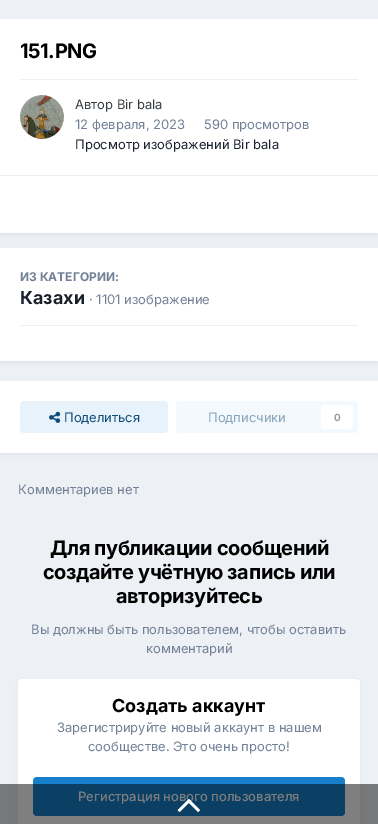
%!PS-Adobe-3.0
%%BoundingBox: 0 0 378 824
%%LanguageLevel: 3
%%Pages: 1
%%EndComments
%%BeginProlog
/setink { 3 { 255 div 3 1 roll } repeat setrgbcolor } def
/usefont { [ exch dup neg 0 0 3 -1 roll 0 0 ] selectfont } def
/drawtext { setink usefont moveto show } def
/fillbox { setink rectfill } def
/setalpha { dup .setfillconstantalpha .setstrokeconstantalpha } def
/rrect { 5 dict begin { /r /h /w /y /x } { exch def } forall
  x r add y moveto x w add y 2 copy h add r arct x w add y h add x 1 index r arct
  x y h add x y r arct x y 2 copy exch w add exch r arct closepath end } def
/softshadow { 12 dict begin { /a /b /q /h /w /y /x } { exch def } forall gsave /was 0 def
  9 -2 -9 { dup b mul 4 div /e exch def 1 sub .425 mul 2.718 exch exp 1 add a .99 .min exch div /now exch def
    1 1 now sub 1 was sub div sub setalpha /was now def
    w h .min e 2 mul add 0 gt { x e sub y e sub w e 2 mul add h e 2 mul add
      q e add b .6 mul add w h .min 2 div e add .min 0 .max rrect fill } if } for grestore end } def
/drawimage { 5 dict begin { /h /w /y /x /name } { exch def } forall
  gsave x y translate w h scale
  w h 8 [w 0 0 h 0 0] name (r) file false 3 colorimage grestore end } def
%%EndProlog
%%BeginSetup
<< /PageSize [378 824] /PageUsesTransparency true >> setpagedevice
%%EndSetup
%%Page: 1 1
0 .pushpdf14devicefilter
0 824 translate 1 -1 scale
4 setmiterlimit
0 0 378 824 237 240 244 fillbox
45 55 72 setink
1 22 376 212 0 2 0.1 softshadow
0 19 378 214 255 255 255 fillbox
/Inter-Bold 20 usefont
0 0 0 setink
20 58 moveto -0.4 0 (151.PNG) ashow
20 79 338 1 239 239 240 fillbox
(assets/img1.rgb) 20 95 44 44 drawimage
(Автор Bir bala) 75 109 /Inter-Regular 13 53 60 65 drawtext
(12 февраля, 2023) 75 129 /Inter-Regular 13 113 128 150 drawtext
(590 просмотров) 204 129 /Inter-Regular 13 113 128 150 drawtext
(Просмотр изображений Bir bala) 75 149 /Inter-Regular 13 26 32 44 drawtext
0 175 378 1 235 236 236 fillbox
45 55 72 setink
1 251 376 111 0 2 0.1 softshadow
0 248 378 113 255 255 255 fillbox
(ИЗ КАТЕГОРИИ:) 20 281 /Inter-Bold 12 113 128 150 drawtext
(Казахи) 20 304 /Inter-Bold 18 26 32 44 drawtext
(· 1101 изображение) 89 304 /Inter-Regular 13 113 128 150 drawtext
20 325 338 1 239 239 240 fillbox
45 55 72 setink
1 384 376 70 0 2 0.1 softshadow
0 381 378 72 255 255 255 fillbox
232 242 250 setink
20 401 148 32 4 rrect fill
(assets/img2.rgb) 49 411 12 12 drawimage
(Поделиться) 64 422 /Inter-Regular 13 14 76 121 drawtext
244 249 253 setink
176 401 182 32 4 rrect fill
(Подписчики) 208 422 /Inter-Regular 13 135 166 188 drawtext
255 255 255 setink
321 405 32 24 4 rrect fill
(0) 334 421 /Inter-Bold 10 154 158 160 drawtext
(Комментариев нет) 18 494 /Inter-Regular 13 113 128 150 drawtext
/Inter-Bold 20 usefont
0 0 0 setink
50 555 moveto -0.4 0 (Для публикации сообщений) ashow
43 579 moveto -0.4 0 (создайте учётную запись или) ashow
116 603 moveto -0.4 0 (авторизуйтесь) ashow
(Вы должны быть пользователем, чтобы оставить) 31 634 /Inter-Regular 13 113 128 150 drawtext
(комментарий) 146 653 /Inter-Regular 13 113 128 150 drawtext
45 55 72 setink
19 682 340 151 3 2 0.1 softshadow
255 255 255 setink
18 679 342 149 4 rrect fill
(Создать аккаунт) 112 712 /Inter-Bold 18 0 0 0 drawtext
(Зарегистрируйте новый аккаунт в нашем) 57 732 /Inter-Regular 13 113 128 150 drawtext
(сообществе. Это очень просто!) 88 751 /Inter-Regular 13 113 128 150 drawtext
23 126 201 setink
33 777 312 39 4 rrect fill
(Регистрация нового пользователя) 78 801 /Inter-Medium 13 255 255 255 drawtext
0.5 setalpha
0 784 378 40 0 0 0 fillbox
1 setalpha
(assets/img3.rgb) 177 799 23 13 drawimage
.poppdf14devicefilter showpage
%%EOF
